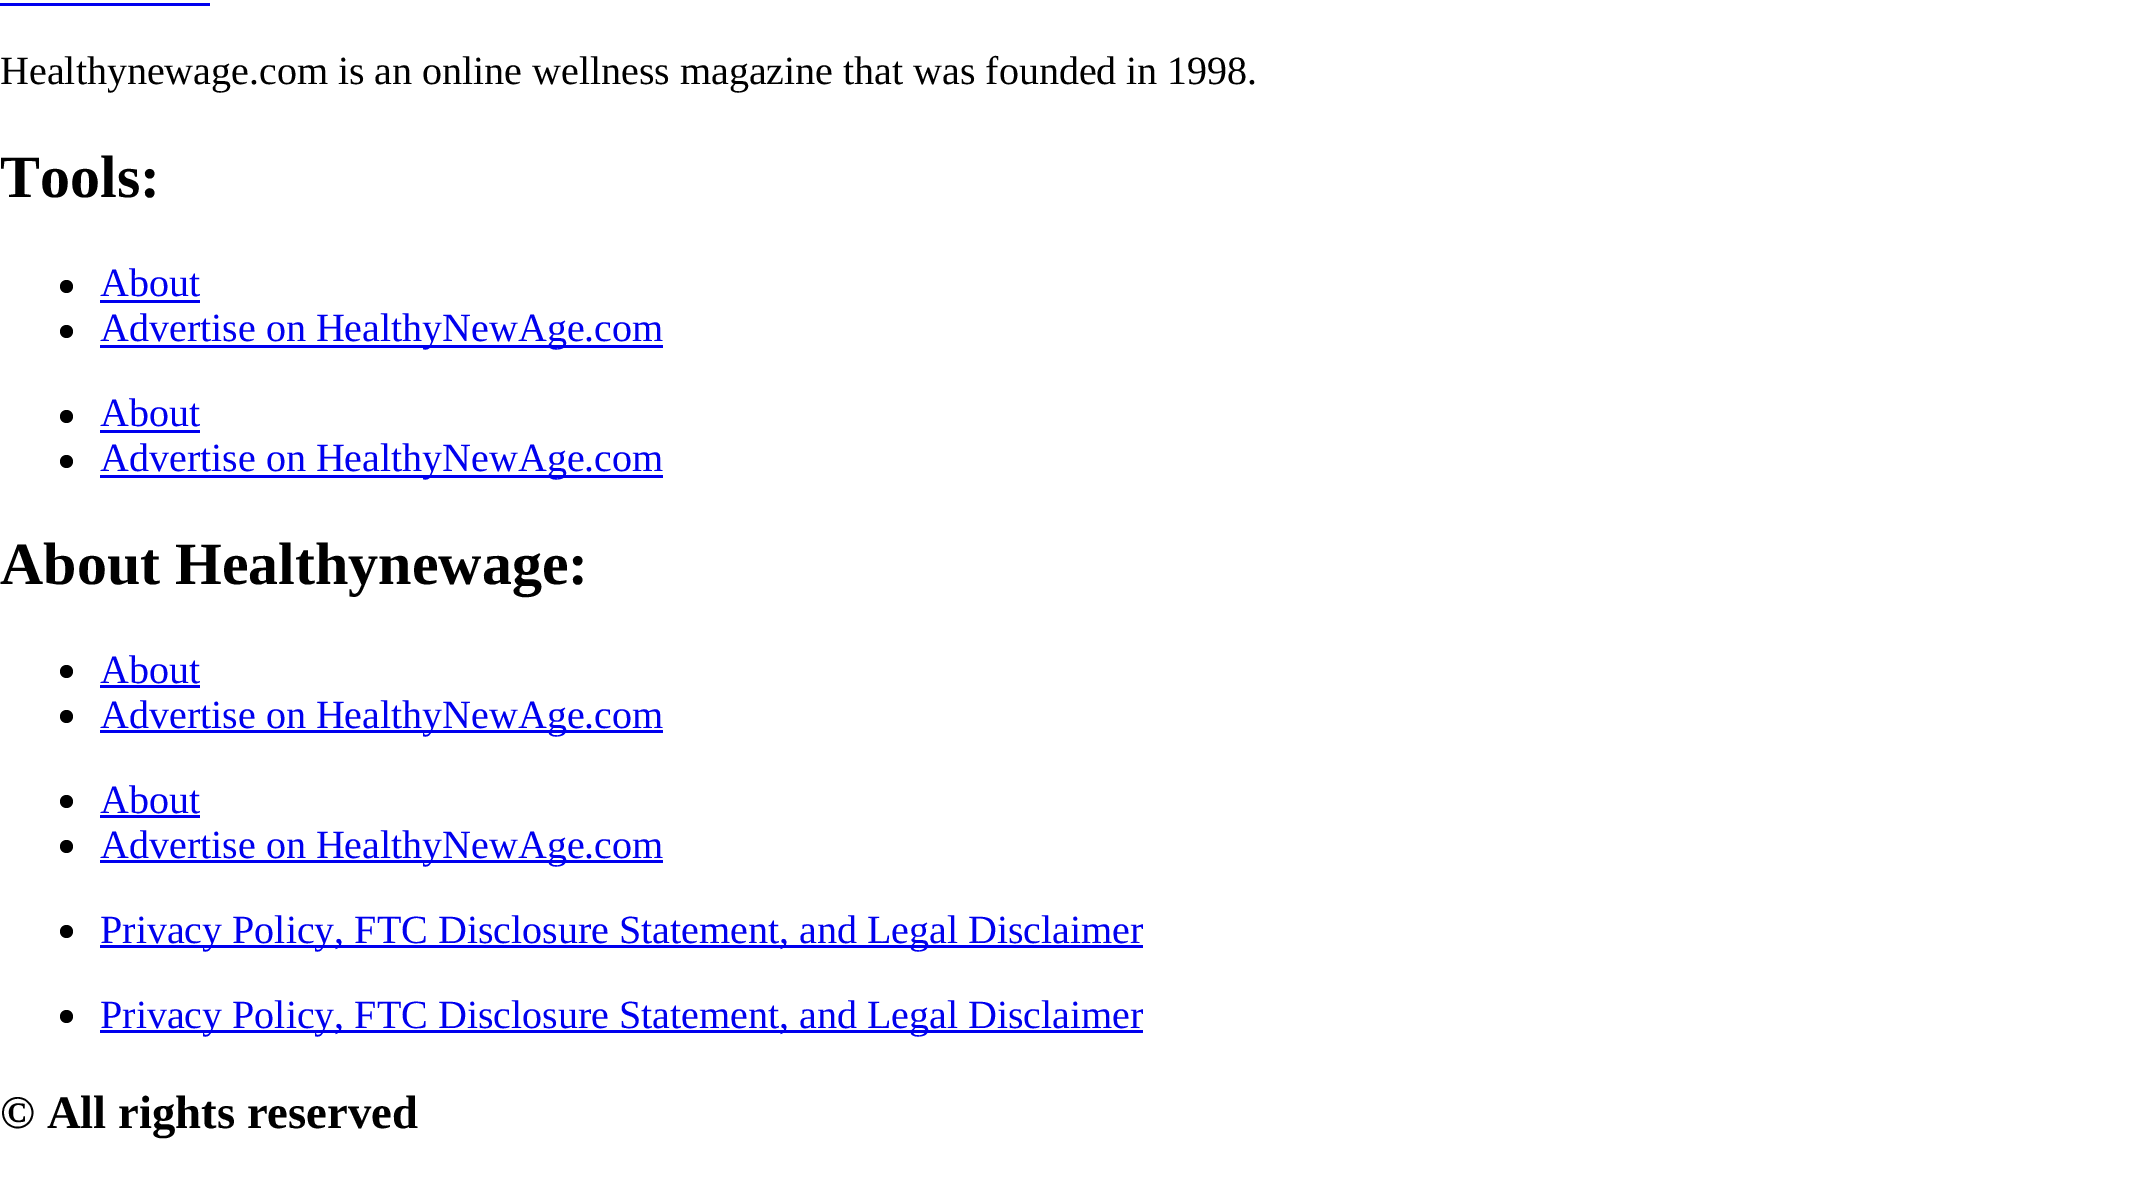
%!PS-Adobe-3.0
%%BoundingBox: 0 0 2146 1186
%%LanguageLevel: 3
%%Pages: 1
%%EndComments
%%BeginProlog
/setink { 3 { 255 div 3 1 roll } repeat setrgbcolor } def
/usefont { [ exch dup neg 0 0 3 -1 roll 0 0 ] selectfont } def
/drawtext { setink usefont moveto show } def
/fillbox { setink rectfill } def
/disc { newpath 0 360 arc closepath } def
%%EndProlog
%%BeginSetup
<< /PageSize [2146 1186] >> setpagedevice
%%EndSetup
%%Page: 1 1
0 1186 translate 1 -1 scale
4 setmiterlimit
0 0 2146 1186 255 255 255 fillbox
0 3 210 3 0 0 238 fillbox
(Healthynewage.com is an online wellness magazine that was founded in 1998.) 0 84 /LiberationSerif-Regular 40 0 0 0 drawtext
(Tools:) 0 197 /LiberationSerif-Bold 60 0 0 0 drawtext
66.5 286.5 6.5 disc fill
(About) 100 296 /LiberationSerif-Regular 40 0 0 238 drawtext
100 300 100 3 0 0 238 fillbox
0 0 0 setink
66.5 331.5 6.5 disc fill
100 345 563 3 0 0 238 fillbox
(Advertise on HealthyNewAge.com) 100 341 /LiberationSerif-Regular 40 0 0 238 drawtext
0 0 0 setink
66.5 416.5 6.5 disc fill
(About) 100 426 /LiberationSerif-Regular 40 0 0 238 drawtext
100 430 100 3 0 0 238 fillbox
0 0 0 setink
66.5 461.5 6.5 disc fill
100 475 563 3 0 0 238 fillbox
(Advertise on HealthyNewAge.com) 100 471 /LiberationSerif-Regular 40 0 0 238 drawtext
(About Healthynewage:) 0 584 /LiberationSerif-Bold 60 0 0 0 drawtext
66.5 671.5 6.5 disc fill
(About) 100 683 /LiberationSerif-Regular 40 0 0 238 drawtext
100 685 100 3 0 0 238 fillbox
0 0 0 setink
66.5 716.5 6.5 disc fill
100 730 563 3 0 0 238 fillbox
(Advertise on HealthyNewAge.com) 100 728 /LiberationSerif-Regular 40 0 0 238 drawtext
0 0 0 setink
66.5 801.5 6.5 disc fill
(About) 100 813 /LiberationSerif-Regular 40 0 0 238 drawtext
100 815 100 3 0 0 238 fillbox
0 0 0 setink
66.5 846.5 6.5 disc fill
100 860 563 3 0 0 238 fillbox
(Advertise on HealthyNewAge.com) 100 858 /LiberationSerif-Regular 40 0 0 238 drawtext
0 0 0 setink
66.5 931.5 6.5 disc fill
100 945 1043 3 0 0 238 fillbox
(Privacy Policy, FTC Disclosure Statement, and Legal Disclaimer) 100 943 /LiberationSerif-Regular 40 0 0 238 drawtext
0 0 0 setink
66.5 1016.5 6.5 disc fill
100 1030 1043 3 0 0 238 fillbox
(Privacy Policy, FTC Disclosure Statement, and Legal Disclaimer) 100 1028 /LiberationSerif-Regular 40 0 0 238 drawtext
(© All rights reserved) 0 1128 /LiberationSerif-Bold 46.75 0 0 0 drawtext
showpage
%%EOF
